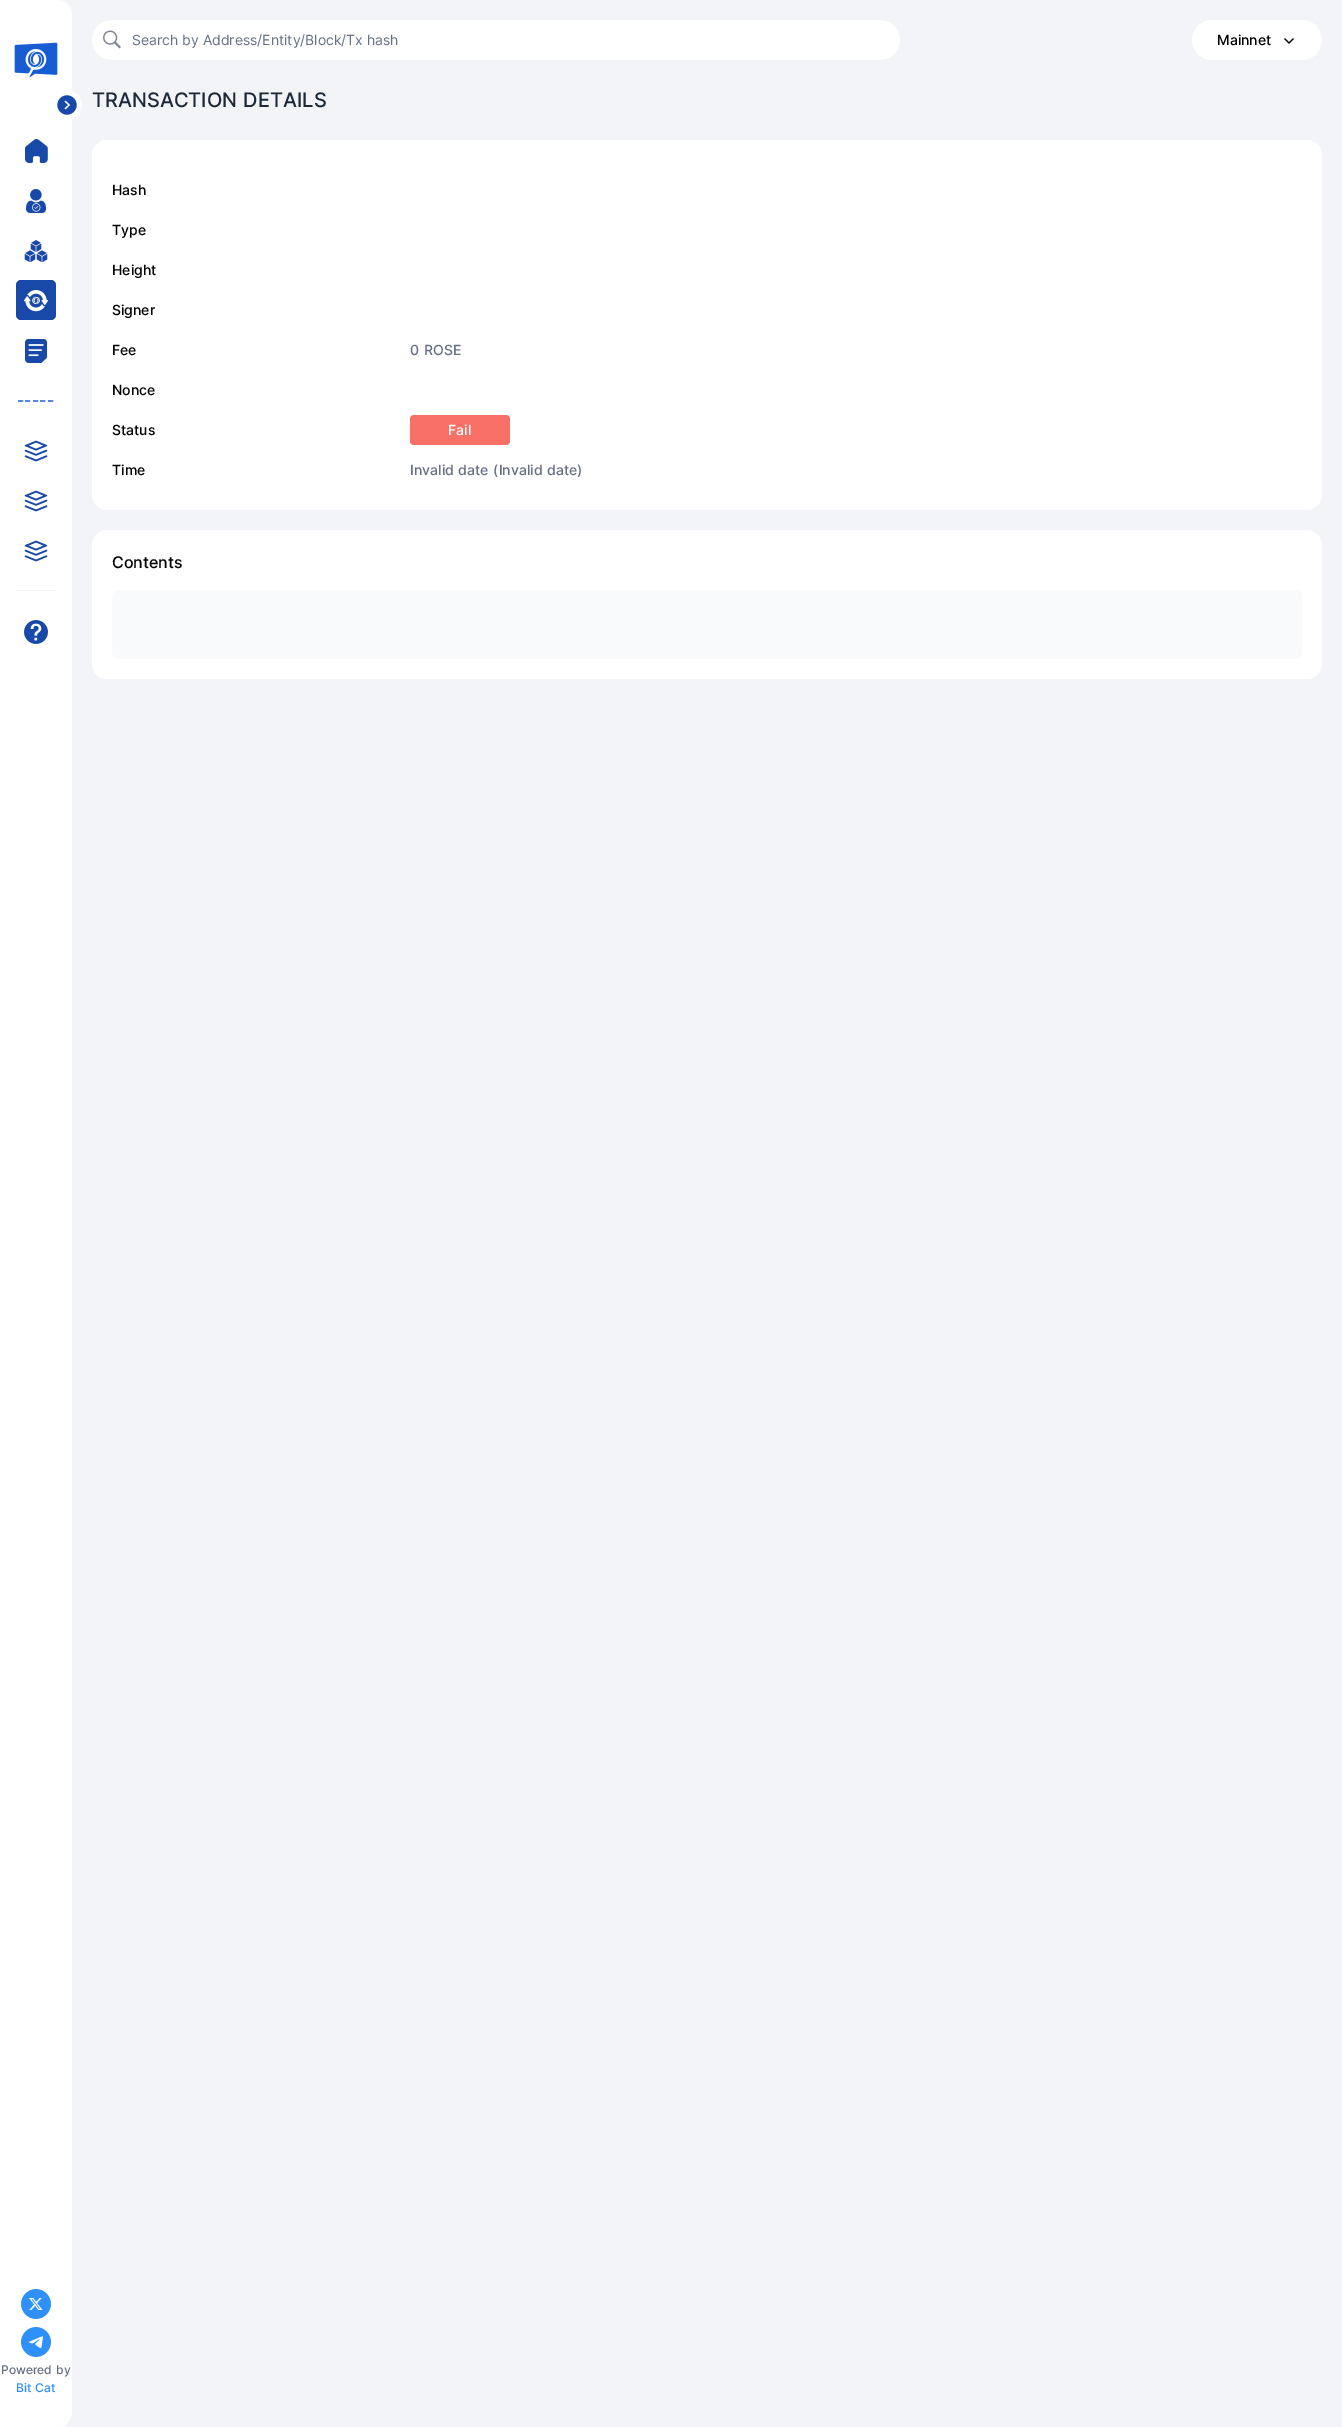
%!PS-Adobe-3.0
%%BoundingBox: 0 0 1342 2427
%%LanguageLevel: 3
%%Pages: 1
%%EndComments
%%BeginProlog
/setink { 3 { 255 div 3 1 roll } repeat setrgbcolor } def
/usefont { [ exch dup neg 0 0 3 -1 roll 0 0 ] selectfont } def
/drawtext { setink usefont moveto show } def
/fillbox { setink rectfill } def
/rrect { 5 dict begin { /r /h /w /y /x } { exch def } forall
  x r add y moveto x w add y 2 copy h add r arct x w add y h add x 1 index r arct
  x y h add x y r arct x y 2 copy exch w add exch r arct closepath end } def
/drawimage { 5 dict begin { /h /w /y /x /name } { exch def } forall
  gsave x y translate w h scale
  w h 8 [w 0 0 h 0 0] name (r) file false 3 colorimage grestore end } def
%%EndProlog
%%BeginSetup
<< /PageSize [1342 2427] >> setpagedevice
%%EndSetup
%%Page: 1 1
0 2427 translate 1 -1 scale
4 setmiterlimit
0 0 1342 2427 242 244 247 fillbox
255 255 255 setink
92 20 808 40 20 rrect fill
(assets/img1.rgb) 103 30 18 19 drawimage
(Search by Address/Entity/Block/Tx hash) 132 45 /Inter-Regular 14 102 112 133 drawtext
255 255 255 setink
1192 20 130 40 20 rrect fill
(Mainnet) 1217 45 /Inter-Medium 14 0 0 0 drawtext
(assets/img2.rgb) 1284 38 10 6 drawimage
/Inter-Medium 20 usefont
29 41 57 setink
92 107 moveto 1 0 32 (TRANSACTION DETAILS) widthshow
255 255 255 setink
92 140 1230 370 15 rrect fill
(Hash) 112 195 /Inter-Medium 14 0 0 0 drawtext
(Type) 112 235 /Inter-Medium 14 0 0 0 drawtext
(Height) 112 275 /Inter-Medium 14 0 0 0 drawtext
(Signer) 112 315 /Inter-Medium 14 0 0 0 drawtext
(Fee) 112 355 /Inter-Medium 14 0 0 0 drawtext
102 112 133 setink
410 355 moveto 1 0 32 (0 ROSE) widthshow
(Nonce) 112 395 /Inter-Medium 14 0 0 0 drawtext
(Status) 112 435 /Inter-Medium 14 0 0 0 drawtext
249 112 102 setink
410 415 100 30 4 rrect fill
(Fail) 448 435 /Inter-Medium 14 255 255 255 drawtext
(Time) 112 475 /Inter-Medium 14 0 0 0 drawtext
102 112 133 setink
410 475 moveto 1 0 32 (Invalid date \(Invalid date\)) widthshow
255 255 255 setink
92 530 1230 149 15 rrect fill
(Contents) 112 568 /Inter-Medium 16 0 0 0 drawtext
249 250 251 setink
112 590 1190 69 8 rrect fill
255 255 255 setink
0 0 moveto 57 0 lineto 65.5 0 72 6.5 72 15 curveto 72 2412 lineto 72 2420.5 65.5 2427 57 2427 curveto 0 2427 lineto closepath fill
(assets/img3.rgb) 14 42 44 36 drawimage
(assets/img4.rgb) 57 91 25 28 drawimage
(assets/img5.rgb) 25 139 23 24 drawimage
(assets/img6.rgb) 26 189 20 24 drawimage
(assets/img7.rgb) 24 240 24 22 drawimage
24 73 169 setink
16 280 40 40 5 rrect fill
(assets/img8.rgb) 24 290 24 22 drawimage
(assets/img9.rgb) 25 339 23 24 drawimage
(-----) 17 406 /Inter-Medium 16 23 92 211 drawtext
(assets/img10.rgb) 24 440 24 22 drawimage
(assets/img10.rgb) 24 490 24 22 drawimage
(assets/img10.rgb) 24 540 24 22 drawimage
16 590 40 1 242 244 247 fillbox
(assets/img11.rgb) 24 620 24 24 drawimage
(assets/img12.rgb) 21 2289 30 30 drawimage
(assets/img13.rgb) 21 2327 30 30 drawimage
/Inter-Medium 12 usefont
102 112 133 setink
1 2374 moveto 1 0 32 (Powered by) widthshow
46 144 250 setink
16 2392 moveto 1 0 32 (Bit Cat) widthshow
showpage
%%EOF
